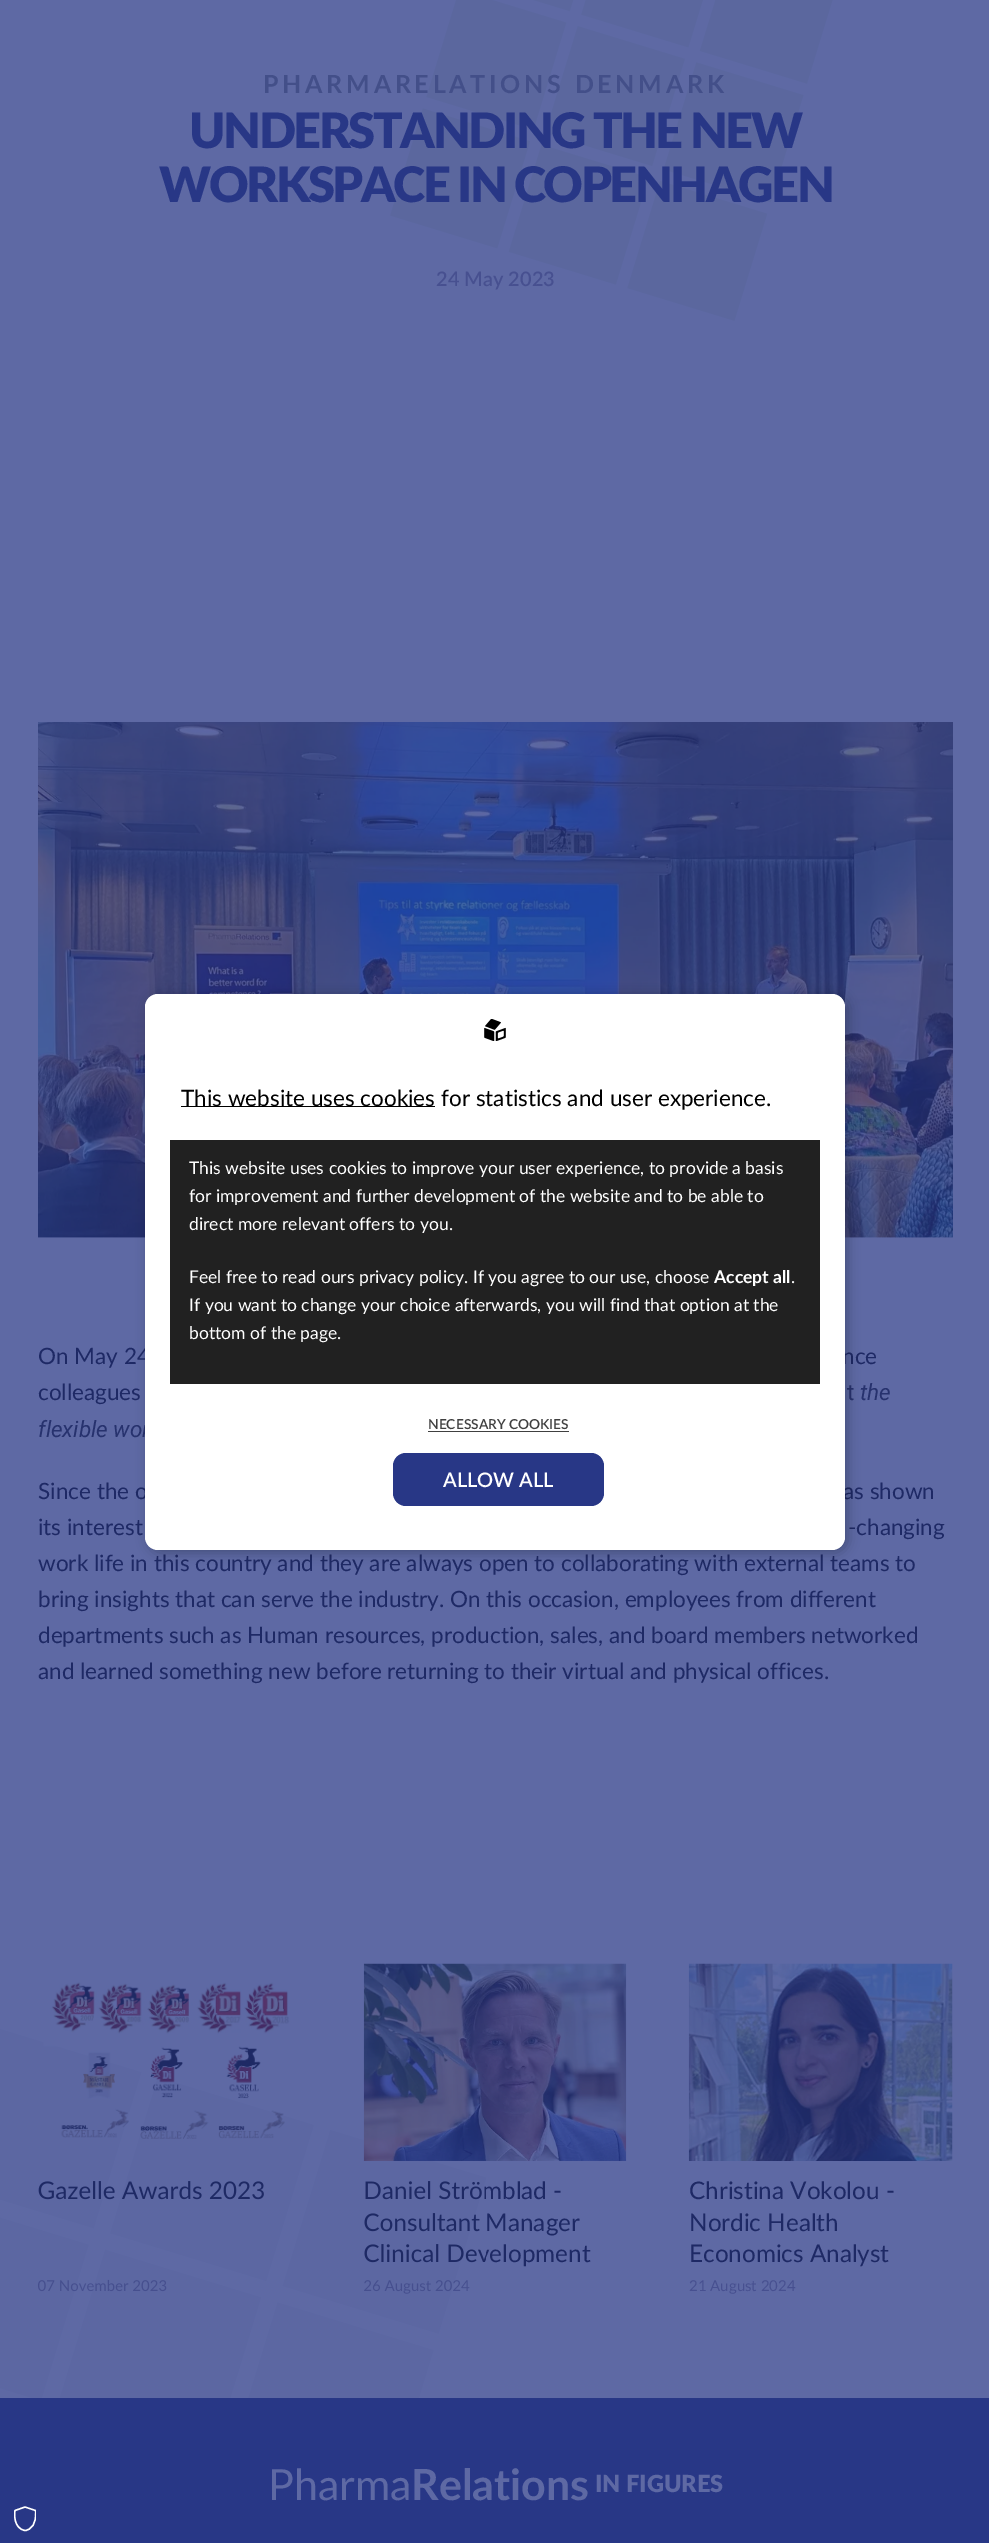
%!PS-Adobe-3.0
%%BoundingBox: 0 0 989 2543
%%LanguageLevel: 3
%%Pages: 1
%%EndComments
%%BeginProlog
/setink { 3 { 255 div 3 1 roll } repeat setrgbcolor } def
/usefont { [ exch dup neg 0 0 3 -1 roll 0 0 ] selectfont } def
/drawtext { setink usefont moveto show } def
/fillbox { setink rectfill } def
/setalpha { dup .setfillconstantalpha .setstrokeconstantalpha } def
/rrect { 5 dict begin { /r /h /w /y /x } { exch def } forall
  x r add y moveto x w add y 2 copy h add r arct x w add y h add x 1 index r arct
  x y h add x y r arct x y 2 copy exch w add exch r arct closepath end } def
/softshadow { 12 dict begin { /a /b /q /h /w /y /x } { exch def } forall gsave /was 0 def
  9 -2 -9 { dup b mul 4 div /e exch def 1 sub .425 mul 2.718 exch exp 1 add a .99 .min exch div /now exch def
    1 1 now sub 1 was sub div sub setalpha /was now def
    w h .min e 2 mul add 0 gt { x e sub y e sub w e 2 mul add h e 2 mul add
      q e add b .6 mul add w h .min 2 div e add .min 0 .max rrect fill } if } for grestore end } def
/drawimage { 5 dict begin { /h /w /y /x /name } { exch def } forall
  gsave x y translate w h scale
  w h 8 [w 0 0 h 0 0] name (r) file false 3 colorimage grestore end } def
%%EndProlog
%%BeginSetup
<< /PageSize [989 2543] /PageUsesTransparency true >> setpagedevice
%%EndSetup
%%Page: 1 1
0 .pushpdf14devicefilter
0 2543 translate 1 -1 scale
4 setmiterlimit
0 0 989 2543 94 105 164 fillbox
(assets/img1.rgb) 390 0 443 321 drawimage
/Lato-Bold 25 usefont
67 79 137 setink
263 93 moveto 3.75 0 (PHARMARELATIONS DENMARK) ashow
/Lato-Black 48.9 usefont
40 55 134 setink
189 148 moveto -2.5 0 (UNDERSTANDING THE NEW) ashow
159 202 moveto -2.5 0 (WORKSPACE IN COPENHAGEN) ashow
(24 May 2023) 436 286 /Lato-SemiBold 20 71 80 144 drawtext
(assets/img2.rgb) 38 722 915 516 drawimage
(On May 24) 38 1364 /Lato-Regular 22.5 30 41 101 drawtext
(nce) 842 1364 /Lato-Regular 22.5 30 41 101 drawtext
(colleagues) 38 1400 /Lato-Regular 22.5 30 41 101 drawtext
(t) 847 1400 /Roboto-Regular 22.5 39 50 110 drawtext
(the) 860 1400 /Roboto-Italic 22.5 39 50 110 drawtext
(flexible wor) 38 1437 /Roboto-Italic 22.5 39 50 110 drawtext
(Since the o) 38 1499 /Lato-Regular 22.5 30 41 101 drawtext
(as shown) 843 1499 /Lato-Regular 22.5 30 41 101 drawtext
(its interest) 38 1535 /Lato-Regular 22.5 30 41 101 drawtext
(-changing) 848 1535 /Lato-Regular 22.5 30 41 101 drawtext
(work life in this country and they are always open to collaborating with external teams to) 38 1571 /Lato-Regular 22.5 30 41 101 drawtext
(bring insights that can serve the industry. On this occasion, employees from different) 38 1607 /Lato-Regular 22.5 30 41 101 drawtext
(departments such as Human resources, production, sales, and board members networked) 38 1643 /Lato-Regular 22.5 30 41 101 drawtext
(and learned something new before returning to their virtual and physical offices.) 38 1679 /Lato-Regular 22.5 30 41 101 drawtext
(Gazelle Awards 2023) 38 2199 /Lato-Regular 24.25 30 41 101 drawtext
(07 November 2023) 38 2291 /Lato-Regular 15 71 80 144 drawtext
(Daniel Strömblad -) 363 2199 /Lato-Regular 24.25 30 41 101 drawtext
(Consultant Manager) 363 2231 /Lato-Regular 24.25 30 41 101 drawtext
(Clinical Development) 363 2262 /Lato-Regular 24.25 30 41 101 drawtext
(26 August 2024) 363 2291 /Lato-Regular 15 71 80 144 drawtext
(assets/img3.rgb) 0 2029 486 369 drawimage
(assets/img4.rgb) 43 1982 247 157 drawimage
(assets/img5.rgb) 363 1963 264 198 drawimage
(assets/img6.rgb) 688 1963 265 198 drawimage
(Christina Vokolou -) 689 2199 /Lato-Regular 24.25 30 41 101 drawtext
(Nordic Health) 689 2231 /Lato-Regular 24.25 30 41 101 drawtext
(Economics Analyst) 689 2262 /Lato-Regular 24.25 30 41 101 drawtext
(21 August 2024) 689 2291 /Lato-Regular 15 71 80 144 drawtext
0 2398 989 145 40 55 134 fillbox
(Pharma) 268 2500 /Lato-Regular 43 94 105 164 drawtext
(Relations) 411 2500 /Lato-Bold 43 94 105 164 drawtext
(IN FIGURES) 595 2492 /Lato-Black 23.5 94 105 164 drawtext
0 0 0 setink
148 996 700 557 13 6 0.25 softshadow
255 255 255 setink
145 994 700 556 13 rrect fill
(assets/img7.rgb) 484 1019 22 22 drawimage
181 1106 254 1 0 0 0 fillbox
(This website uses cookies) 181 1106 /Lato-Regular 22.5 0 0 0 drawtext
(for statistics and user experience.) 441 1106 /Lato-Regular 22.5 0 0 0 drawtext
170 1140 650 244 33 33 33 fillbox
(This website uses cookies to improve your user experience, to provide a basis) 189 1174 /Lato-Regular 17.5 255 255 255 drawtext
(for improvement and further development of the website and to be able to) 189 1202 /Lato-Regular 17.5 255 255 255 drawtext
(direct more relevant offers to you.) 189 1230 /Lato-Regular 17.5 255 255 255 drawtext
(Feel free to read ours privacy policy. If you agree to our use, choose) 189 1283 /Lato-Regular 17.5 255 255 255 drawtext
(Accept all) 714 1283 /Lato-Bold 17.5 255 255 255 drawtext
(.) 791 1283 /Lato-Regular 17.5 255 255 255 drawtext
(If you want to change your choice afterwards, you will find that option at the) 189 1311 /Lato-Regular 17.5 255 255 255 drawtext
(bottom of the page.) 189 1339 /Lato-Regular 17.5 255 255 255 drawtext
(NECESSARY COOKIES) 428 1429 /Lato-SemiBold 13.75 64 64 64 drawtext
428 1431 141 1 64 64 64 fillbox
40 55 134 setink
393 1453 211 53 13 rrect fill
(ALLOW ALL) 443 1487 /Lato-SemiBold 20 255 255 255 drawtext
gsave
14 2501 22 35 rectclip
1.4 setlinewidth
1 setlinejoin
25 2507 moveto 15 2510.5 lineto 14.5 2512.5 13 2528.5 25 2530.5 curveto 31 2530 37 2524 35.5 2510.5 curveto 25 2507 lineto stroke
grestore
.poppdf14devicefilter showpage
%%EOF
